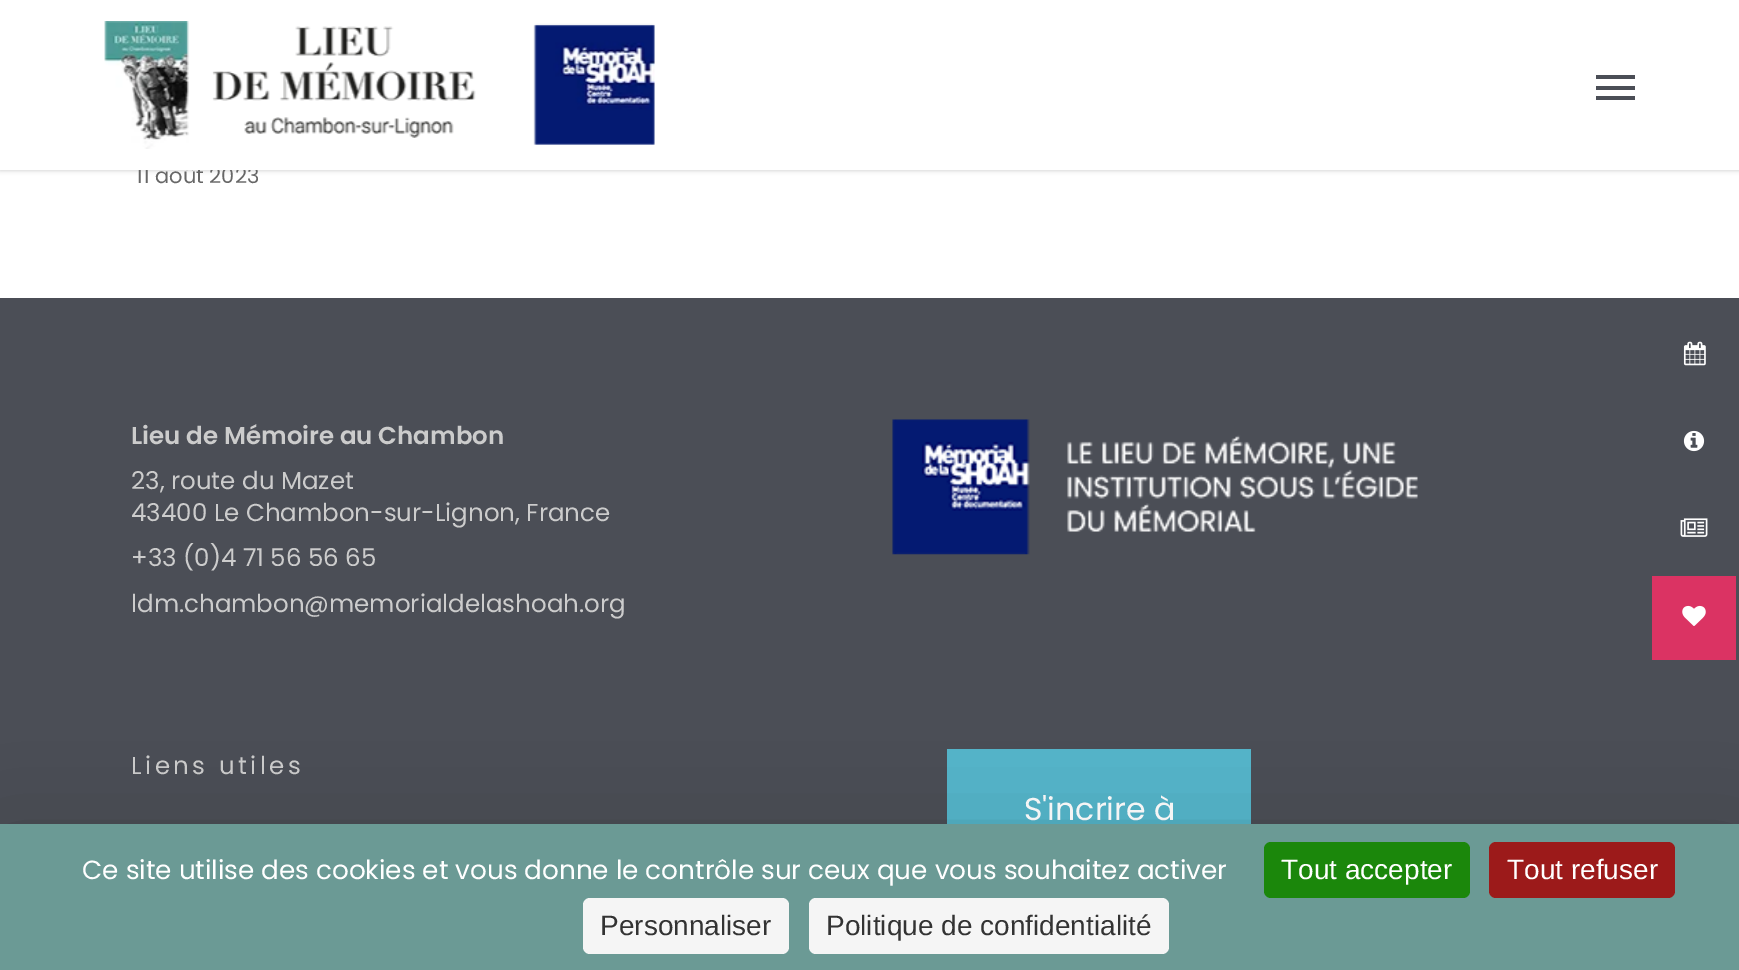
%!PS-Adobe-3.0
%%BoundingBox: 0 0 1739 970
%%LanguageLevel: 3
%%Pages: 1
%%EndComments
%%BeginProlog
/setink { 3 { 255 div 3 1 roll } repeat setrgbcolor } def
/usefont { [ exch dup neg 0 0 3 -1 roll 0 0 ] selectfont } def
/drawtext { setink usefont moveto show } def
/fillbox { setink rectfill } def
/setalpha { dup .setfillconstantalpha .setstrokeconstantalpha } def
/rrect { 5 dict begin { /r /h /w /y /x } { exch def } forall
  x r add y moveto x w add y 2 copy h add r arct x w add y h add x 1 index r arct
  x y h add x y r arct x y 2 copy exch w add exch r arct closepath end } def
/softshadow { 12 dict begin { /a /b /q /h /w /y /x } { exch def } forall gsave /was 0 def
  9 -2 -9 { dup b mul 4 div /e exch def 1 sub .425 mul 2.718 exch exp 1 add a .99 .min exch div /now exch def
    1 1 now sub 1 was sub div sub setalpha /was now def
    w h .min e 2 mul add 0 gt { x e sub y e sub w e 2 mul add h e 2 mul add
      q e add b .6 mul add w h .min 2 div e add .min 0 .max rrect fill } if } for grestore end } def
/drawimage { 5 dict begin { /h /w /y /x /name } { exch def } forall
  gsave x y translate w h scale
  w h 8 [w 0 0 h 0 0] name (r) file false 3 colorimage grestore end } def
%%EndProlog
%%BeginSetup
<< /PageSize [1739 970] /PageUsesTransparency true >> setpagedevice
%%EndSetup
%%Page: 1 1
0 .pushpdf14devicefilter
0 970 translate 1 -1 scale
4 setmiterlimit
0 0 1739 970 255 255 255 fillbox
0 0 0 setink
0 0 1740 170 0 2.5 0.22 softshadow
(11 août 2023) 136 183 /Poppins-Regular 21 103 103 103 drawtext
0 0 1739 170 255 255 255 fillbox
(assets/img1.rgb) 104 21 551 128 drawimage
1596 75 39 4 75 78 86 fillbox
1596 96 39 4 75 78 86 fillbox
1596 86 39 4 75 78 86 fillbox
0 298 1739 526 75 78 86 fillbox
(Lieu de Mémoire au Chambon) 131 444 /Poppins-SemiBold 24.5 204 204 204 drawtext
(23, route du Mazet) 131 489 /Poppins-Regular 24.5 204 204 204 drawtext
(43400 Le Chambon-sur-Lignon, France) 131 521 /Poppins-Regular 24.5 204 204 204 drawtext
(+33 \(0\)4 71 56 56 65) 131 566 /Poppins-Regular 24.5 204 204 204 drawtext
(ldm.chambon@memorialdelashoah.org) 131 612 /Poppins-Regular 24.5 204 204 204 drawtext
(assets/img2.rgb) 892 419 526 136 drawimage
131 774 moveto 3.5 0 (Liens utiles) ashow
947 749 304 75 85 180 202 fillbox
(S'incrire à) 1024 820 /Poppins-Regular 31.5 255 255 255 drawtext
(assets/img3.rgb) 1683 341 23 25 drawimage
(assets/img4.rgb) 1683 430 22 22 drawimage
(assets/img5.rgb) 1680 518 28 19 drawimage
1652 576 84 84 219 51 99 fillbox
(assets/img6.rgb) 1682 605 24 21 drawimage
0 0 0 setink
0 859 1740 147 0 52.5 0.25 softshadow
0 824 1739 146 107 154 149 fillbox
(Ce site utilise des cookies et vous donne le contrôle sur ceux que vous souhaitez activer) 82 879 /Poppins-Regular 26.25 255 255 255 drawtext
27 135 11 setink
1264 842 206 56 7 rrect fill
(Tout accepter) 1281 879 /LiberationSans-Regular 28 255 255 255 drawtext
156 26 26 setink
1489 842 186 56 7 rrect fill
(Tout refuser) 1507 879 /LiberationSans-Regular 28 255 255 255 drawtext
245 245 245 setink
583 898 206 56 7 rrect fill
(Personnaliser) 600 935 /LiberationSans-Regular 28 51 51 51 drawtext
245 245 245 setink
809 898 360 56 7 rrect fill
(Politique de confidentialité) 826 935 /LiberationSans-Regular 28 51 51 51 drawtext
.poppdf14devicefilter showpage
%%EOF
